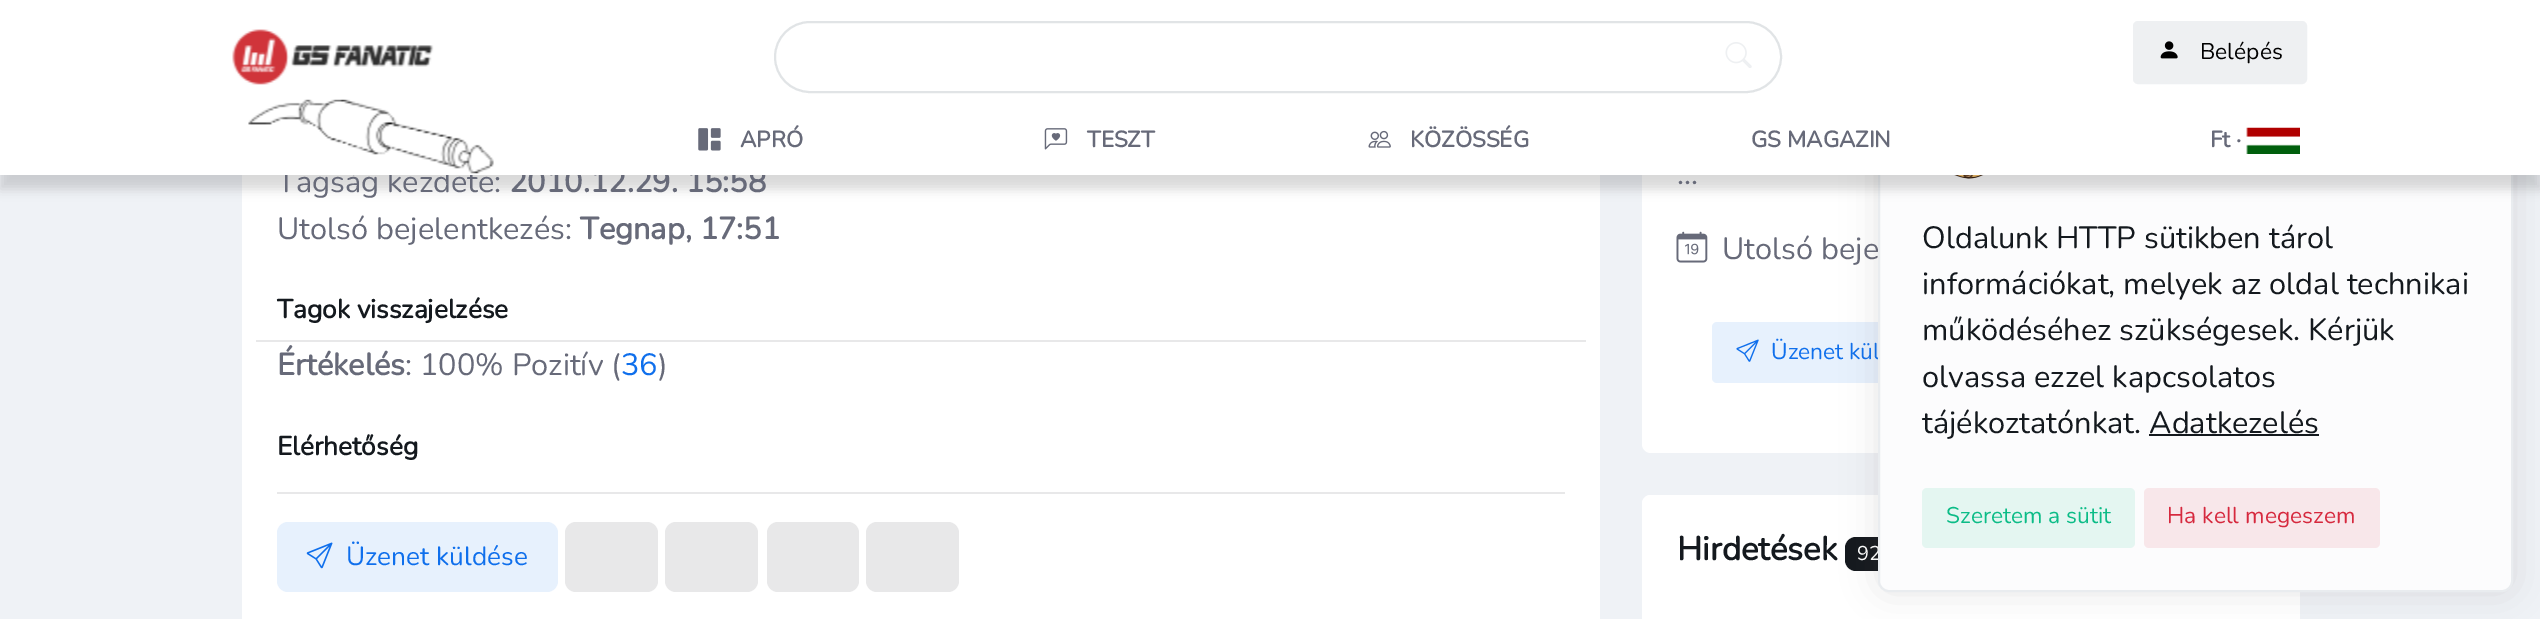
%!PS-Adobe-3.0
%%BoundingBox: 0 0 2540 619
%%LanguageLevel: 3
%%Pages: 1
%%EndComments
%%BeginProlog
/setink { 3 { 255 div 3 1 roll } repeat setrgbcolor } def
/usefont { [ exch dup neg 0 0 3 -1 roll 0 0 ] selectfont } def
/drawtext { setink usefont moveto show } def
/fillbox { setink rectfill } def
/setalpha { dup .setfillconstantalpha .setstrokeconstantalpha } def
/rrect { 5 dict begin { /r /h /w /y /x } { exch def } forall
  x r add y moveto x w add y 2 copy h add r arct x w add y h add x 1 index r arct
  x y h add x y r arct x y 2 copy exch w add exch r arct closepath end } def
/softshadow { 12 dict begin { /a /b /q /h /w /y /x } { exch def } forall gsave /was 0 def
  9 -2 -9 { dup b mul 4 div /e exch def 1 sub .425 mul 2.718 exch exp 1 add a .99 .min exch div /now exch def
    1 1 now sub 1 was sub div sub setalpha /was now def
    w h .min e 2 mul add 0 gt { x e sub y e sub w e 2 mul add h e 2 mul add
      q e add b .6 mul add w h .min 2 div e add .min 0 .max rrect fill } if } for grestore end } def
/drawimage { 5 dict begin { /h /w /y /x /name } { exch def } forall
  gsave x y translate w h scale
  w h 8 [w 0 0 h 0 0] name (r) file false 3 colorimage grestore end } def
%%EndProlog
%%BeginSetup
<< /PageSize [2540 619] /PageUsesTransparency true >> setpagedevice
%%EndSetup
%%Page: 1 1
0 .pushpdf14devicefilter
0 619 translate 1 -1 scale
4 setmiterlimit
0 0 2540 619 239 242 246 fillbox
242 175 1358 444 255 255 255 fillbox
1642 -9 658 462 9 rrect fill
(Utolsó beje) 1722 259 /Nunito-Regular 30.75 103 106 121 drawtext
231 241 253 setink
1712 322 241 61 5 rrect fill
(Üzenet kül) 1771 359 /Nunito-Regular 22.75 15 111 236 drawtext
255 255 255 setink
1642 495 658 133 9 rrect fill
1651 495 moveto 2291 495 lineto 2296 495 2300 499 2300 504 curveto 2300 586 lineto 1642 586 lineto 1642 504 lineto 1642 499 1646 495 1651 495 curveto closepath fill
20 25 30 setink
1845 537 61 34 11 rrect fill
(92) 1857 560 /Nunito-Regular 20 255 255 255 drawtext
93 83 84 setink
1878 56 635 536 11 17.5 0.15 softshadow
252 252 253 setink
1879 57 633 534 10 rrect gsave fill grestore
233 236 239 setink
2 setlinewidth
stroke
(assets/img12.rgb) 1954 175 30 4 drawimage
0 0 0 setink
0 14 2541 175 0 5.5 0.15 softshadow
(Tagság kezdete:) 277 192 /Nunito-Regular 30.75 103 106 121 drawtext
(2010.12.29. 15:58) 509 192 /Nunito-Bold 30.75 103 106 121 drawtext
0 0 2540 175 255 255 255 fillbox
(assets/img1.rgb) 232 29 202 56 drawimage
225 228 230 setink
775 22 1006 70 35 rrect stroke
(assets/img2.rgb) 1725 42 27 26 drawimage
238 240 242 setink
2134 22 172 61 4 rrect gsave fill grestore
stroke
(assets/img3.rgb) 2160 41 18 18 drawimage
(Belépés) 2200 59 /Nunito-Regular 22.75 0 0 0 drawtext
(assets/img4.rgb) 248 99 246 75 drawimage
(assets/img5.rgb) 698 128 23 23 drawimage
(APRÓ) 740 147 /Nunito-Bold 22.5 103 106 121 drawtext
(assets/img6.rgb) 1044 128 24 22 drawimage
(TESZT) 1087 147 /Nunito-Bold 22.5 103 106 121 drawtext
(assets/img7.rgb) 1368 130 23 18 drawimage
(KÖZÖSSÉG) 1410 147 /Nunito-Bold 22.5 103 106 121 drawtext
(GS MAGAZIN) 1751 147 /Nunito-Bold 22.5 103 106 121 drawtext
(Ft ·) 2210 147 /Nunito-Bold 22.5 103 106 121 drawtext
(assets/img8.rgb) 2246 127 54 27 drawimage
(Utolsó bejelentkezés:) 277 239 /Nunito-Regular 30.75 103 106 121 drawtext
(Tegnap, 17:51) 580 239 /Nunito-Bold 30.75 103 106 121 drawtext
(Tagok visszajelzése) 277 318 /Nunito-Bold 26.25 20 25 30 drawtext
256 340 1330 2 232 232 233 fillbox
(Értékelés) 277 375 /Nunito-Bold 30.75 103 106 121 drawtext
(: 100% Pozitív \() 405 375 /Nunito-Regular 30.75 103 106 121 drawtext
(36) 621 375 /Nunito-Regular 30.75 15 111 236 drawtext
(\)) 658 375 /Nunito-Regular 30.75 103 106 121 drawtext
(Elérhetőség) 277 455 /Nunito-Bold 26.25 20 25 30 drawtext
277 492 1288 2 232 232 233 fillbox
231 241 253 setink
277 522 281 70 11 rrect fill
(assets/img9.rgb) 306 542 27 27 drawimage
(Üzenet küldése) 346 565 /Nunito-Regular 26.25 15 111 236 drawtext
232 232 233 setink
565 522 93 70 11 rrect fill
665 522 93 70 11 rrect fill
767 522 92 70 11 rrect fill
866 522 93 70 11 rrect fill
(...) 1677 184 /Nunito-Regular 30.75 103 106 121 drawtext
(assets/img10.rgb) 1676 231 32 32 drawimage
(assets/img11.rgb) 1736 339 23 23 drawimage
(Hirdetések) 1677 560 /Nunito-Bold 33 20 25 30 drawtext
(Oldalunk HTTP sütikben tárol) 1922 248 /Nunito-Regular 30.75 20 25 30 drawtext
(információkat, melyek az oldal technikai) 1922 294 /Nunito-Regular 30.75 20 25 30 drawtext
(működéséhez szükségesek. Kérjük) 1922 340 /Nunito-Regular 30.75 20 25 30 drawtext
(olvassa ezzel kapcsolatos) 1922 387 /Nunito-Regular 30.75 20 25 30 drawtext
(tájékoztatónkat. Adatkezelés) 1922 433 /Nunito-Regular 30.75 20 25 30 drawtext
2149 434 170 2 20 25 30 fillbox
228 246 241 setink
1922 488 213 60 5 rrect fill
(Szeretem a sütit) 1946 523 /Nunito-Regular 22.75 12 188 135 drawtext
248 231 234 setink
2144 488 236 60 5 rrect fill
(Ha kell megeszem) 2167 523 /Nunito-Regular 22.75 214 41 62 drawtext
.poppdf14devicefilter showpage
%%EOF
